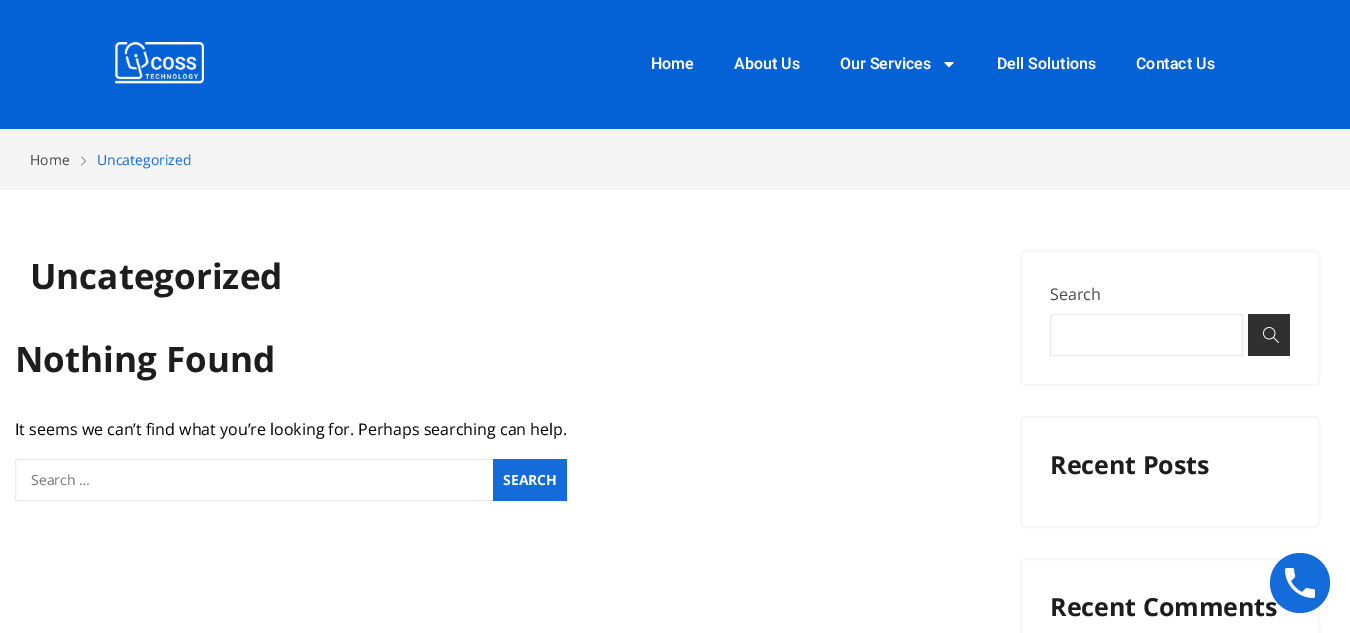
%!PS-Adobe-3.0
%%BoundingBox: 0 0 1350 633
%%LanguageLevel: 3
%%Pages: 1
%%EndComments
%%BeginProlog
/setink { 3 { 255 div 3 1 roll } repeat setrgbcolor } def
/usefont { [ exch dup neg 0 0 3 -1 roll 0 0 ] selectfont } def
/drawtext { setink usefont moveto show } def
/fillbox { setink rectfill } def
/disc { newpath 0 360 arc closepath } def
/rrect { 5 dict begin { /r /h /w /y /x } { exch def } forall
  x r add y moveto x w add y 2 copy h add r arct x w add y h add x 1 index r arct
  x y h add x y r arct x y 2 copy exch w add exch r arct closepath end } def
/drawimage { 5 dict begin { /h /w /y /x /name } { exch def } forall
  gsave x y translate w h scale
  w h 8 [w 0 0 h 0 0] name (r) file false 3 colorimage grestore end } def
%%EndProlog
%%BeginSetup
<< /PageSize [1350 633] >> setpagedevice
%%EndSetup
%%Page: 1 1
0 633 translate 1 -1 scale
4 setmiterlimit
0 0 1350 633 255 255 255 fillbox
0 0 1350 129 5 98 214 fillbox
(assets/img1.rgb) 115 42 89 42 drawimage
(Home) 651 69 /Roboto-SemiBold 16 255 255 255 drawtext
(About Us) 734 69 /Roboto-SemiBold 16 255 255 255 drawtext
(Our Services) 840 69 /Roboto-SemiBold 16 255 255 255 drawtext
(assets/img2.rgb) 944 62 10 6 drawimage
(Dell Solutions) 997 69 /Roboto-SemiBold 16 255 255 255 drawtext
(Contact Us) 1136 69 /Roboto-SemiBold 16 255 255 255 drawtext
0 129 1350 61 245 245 245 fillbox
(Home) 30 165 /OpenSans-Regular 14 71 73 74 drawtext
(assets/img3.rgb) 81 156 5 10 drawimage
(Uncategorized) 97 165 /OpenSans-Regular 14 20 108 218 drawtext
(Uncategorized) 30 289 /OpenSans-Bold 35 29 29 29 drawtext
(Nothing Found) 15 372 /OpenSans-Bold 35 29 29 29 drawtext
(It seems we can’t find what you’re looking for. Perhaps searching can help.) 15 435 /OpenSans-Regular 16 0 0 0 drawtext
235 235 235 setink
15.5 459.5 551 41 rectstroke
(Search …) 31 485 /OpenSans-Regular 14 117 117 117 drawtext
493 459 74 42 20 108 218 fillbox
(SEARCH) 503 485 /OpenSans-Bold 14 255 255 255 drawtext
247 247 247 setink
2 setlinewidth
1021 251 298 134 4 rrect stroke
(Search) 1050 300 /OpenSans-Regular 16 71 73 74 drawtext
235 235 235 setink
1 setlinewidth
1050.5 314.5 192 41 rectstroke
1248 314 42 42 49 48 48 fillbox
(assets/img4.rgb) 1263 327 16 16 drawimage
247 247 247 setink
2 setlinewidth
1021 417 298 110 4 rrect stroke
(Recent Posts) 1050 474 /OpenSans-Bold 25 29 29 29 drawtext
247 247 247 setink
1021 559 298 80 4 rrect stroke
(Recent Comments) 1050 616 /OpenSans-Bold 25 29 29 29 drawtext
20 108 218 setink
1300 583 30 disc fill
(assets/img5.rgb) 1285 568 30 30 drawimage
showpage
%%EOF
